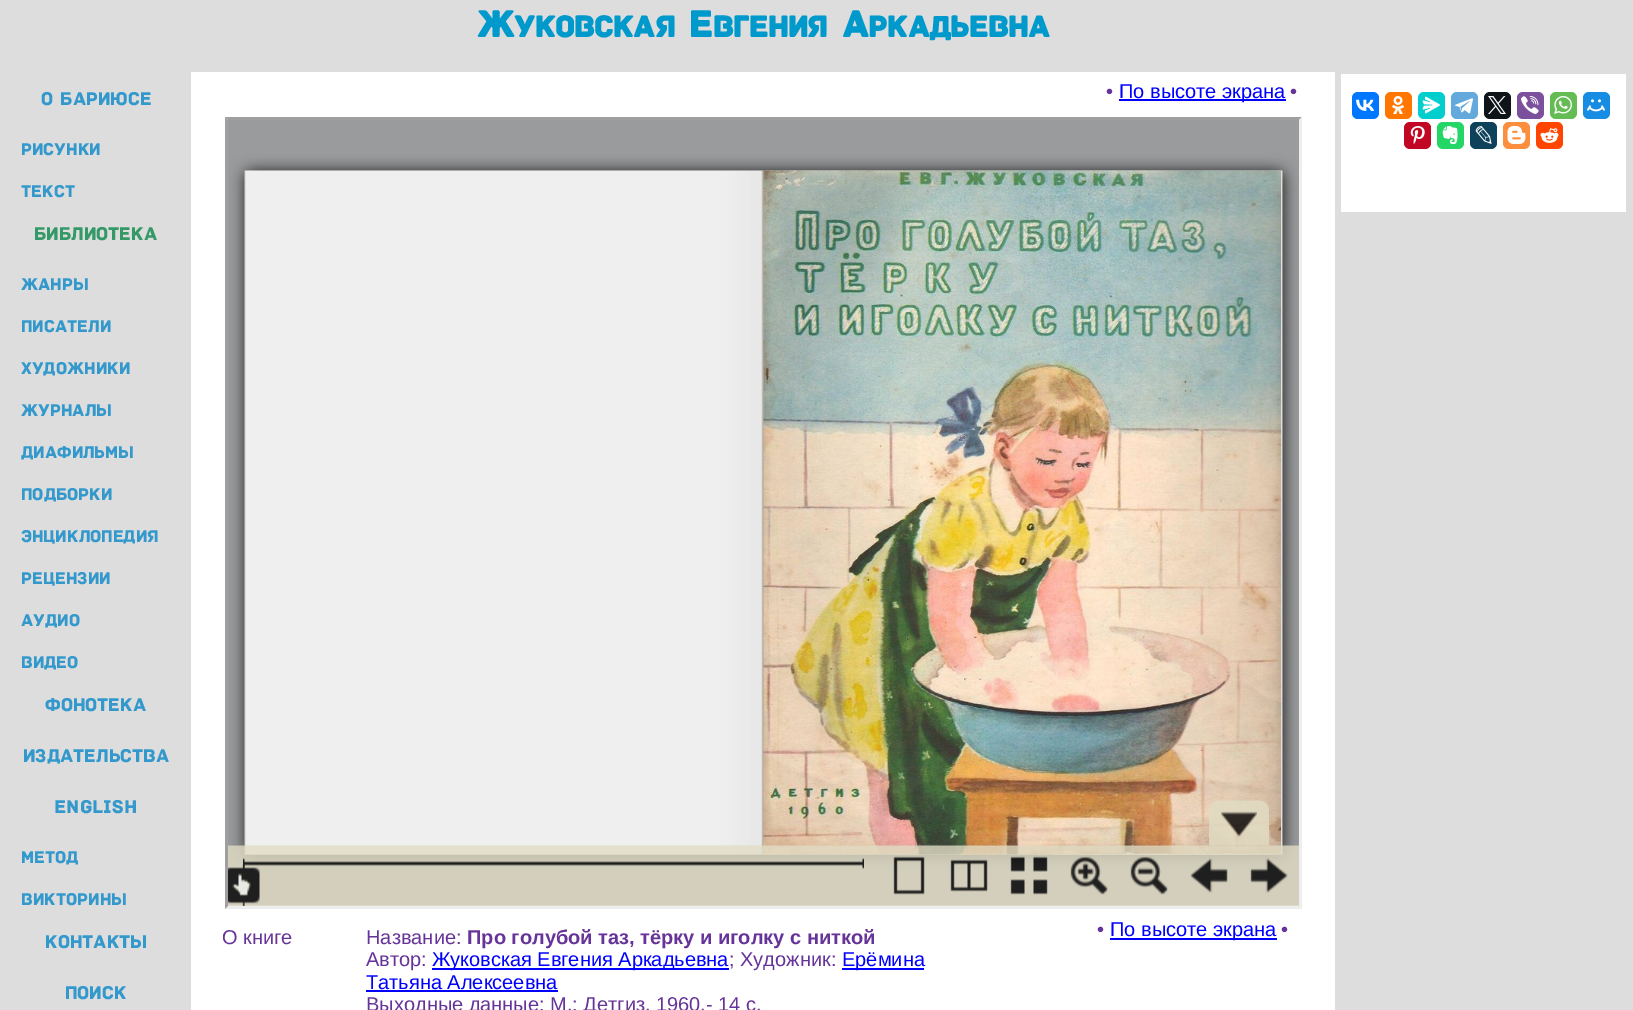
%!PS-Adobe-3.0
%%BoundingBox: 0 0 1633 1010
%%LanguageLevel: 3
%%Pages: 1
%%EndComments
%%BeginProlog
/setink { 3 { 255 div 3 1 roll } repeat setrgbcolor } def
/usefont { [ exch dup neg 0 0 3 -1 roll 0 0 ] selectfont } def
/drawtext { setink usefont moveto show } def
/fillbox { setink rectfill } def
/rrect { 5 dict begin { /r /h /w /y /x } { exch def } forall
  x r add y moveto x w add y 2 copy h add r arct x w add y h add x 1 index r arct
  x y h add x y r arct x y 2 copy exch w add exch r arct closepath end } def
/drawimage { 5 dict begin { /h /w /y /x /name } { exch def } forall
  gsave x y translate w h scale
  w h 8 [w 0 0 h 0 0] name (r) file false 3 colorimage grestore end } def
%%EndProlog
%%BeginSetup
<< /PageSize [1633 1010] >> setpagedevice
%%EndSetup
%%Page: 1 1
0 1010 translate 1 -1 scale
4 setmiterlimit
0 0 1633 1010 221 221 221 fillbox
(Жуковская Евгения Аркадьевна) 477 37 /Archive-Bold 39 0 153 204 drawtext
(О БАРИЮСЕ) 41 105 /Archive-Regular 19.5 51 153 204 drawtext
(РИСУНКИ) 21 155 /Archive-Regular 18 51 153 204 drawtext
(ТЕКСТ) 21 197 /Archive-Regular 18 51 153 204 drawtext
(БИБЛИОТЕКА) 34 240 /Archive-Regular 19.5 51 153 102 drawtext
(ЖАНРЫ) 21 290 /Archive-Regular 18 51 153 204 drawtext
(ПИСАТЕЛИ) 21 332 /Archive-Regular 18 51 153 204 drawtext
(ХУДОЖНИКИ) 21 374 /Archive-Regular 18 51 153 204 drawtext
(ЖУРНАЛЫ) 21 416 /Archive-Regular 18 51 153 204 drawtext
(ДИАФИЛЬМЫ) 21 458 /Archive-Regular 18 51 153 204 drawtext
(ПОДБОРКИ) 21 500 /Archive-Regular 18 51 153 204 drawtext
(ЭНЦИКЛОПЕДИЯ) 21 542 /Archive-Regular 18 51 153 204 drawtext
(РЕЦЕНЗИИ) 21 584 /Archive-Regular 18 51 153 204 drawtext
(АУДИО) 21 626 /Archive-Regular 18 51 153 204 drawtext
(ВИДЕО) 21 668 /Archive-Regular 18 51 153 204 drawtext
(ФОНОТЕКА) 45 711 /Archive-Regular 19.5 51 153 204 drawtext
(ИЗДАТЕЛЬСТВА) 23 762 /Archive-Regular 19.5 51 153 204 drawtext
(ENGLISH) 54 813 /Archive-Regular 19.5 51 153 204 drawtext
(МЕТОД) 21 863 /Archive-Regular 18 51 153 204 drawtext
(ВИКТОРИНЫ) 21 905 /Archive-Regular 18 51 153 204 drawtext
(КОНТАКТЫ) 45 948 /Archive-Regular 19.5 51 153 204 drawtext
(ПОИСК) 65 999 /Archive-Regular 19.5 51 153 204 drawtext
191 72 1144 938 255 255 255 fillbox
(•) 1106 98 /LiberationSans-Regular 20 102 51 153 drawtext
1119 99 167 2 0 0 255 fillbox
(По высоте экрана) 1119 98 /LiberationSans-Regular 20 0 0 255 drawtext
(•) 1290 98 /LiberationSans-Regular 20 102 51 153 drawtext
159 159 159 setink
225 117 moveto 1302 117 lineto 1299 120 lineto 228 120 lineto closepath fill
238 238 238 setink
1302 117 moveto 1302 909 lineto 1299 906 lineto 1299 120 lineto closepath fill
1302 909 moveto 225 909 lineto 228 906 lineto 1299 906 lineto closepath fill
159 159 159 setink
225 909 moveto 225 117 lineto 228 120 lineto 228 906 lineto closepath fill
(assets/img1.rgb) 228 120 1071 786 drawimage
(О книге) 222 944 /LiberationSans-Regular 20 102 51 153 drawtext
(Название:) 366 944 /LiberationSans-Regular 20 102 51 153 drawtext
(Про голубой таз, тёрку и иголку с ниткой) 467 944 /LiberationSans-Bold 20 102 51 153 drawtext
(Автор:) 366 966 /LiberationSans-Regular 20 102 51 153 drawtext
432 968 297 2 0 0 255 fillbox
(Жуковская Евгения Аркадьевна) 432 966 /LiberationSans-Regular 20 0 0 255 drawtext
(; Художник:) 729 966 /LiberationSans-Regular 20 102 51 153 drawtext
842 968 82 2 0 0 255 fillbox
(Ерёмина) 842 966 /LiberationSans-Regular 20 0 0 255 drawtext
(Татьяна Алексеевна) 366 989 /LiberationSans-Regular 20 0 0 255 drawtext
366 990 192 2 0 0 255 fillbox
(Выходные данные: М.: Детгиз, 1960.- 14 с.) 366 1011 /LiberationSans-Regular 20 102 51 153 drawtext
(•) 1097 936 /LiberationSans-Regular 20 102 51 153 drawtext
1110 938 167 2 0 0 255 fillbox
(По высоте экрана) 1110 936 /LiberationSans-Regular 20 0 0 255 drawtext
(•) 1281 936 /LiberationSans-Regular 20 102 51 153 drawtext
1341 74 285 138 255 255 255 fillbox
0 119 255 setink
1352 92 27 27 6 rrect fill
(assets/img2.rgb) 1356 99 18 12 drawimage
255 119 0 setink
1385 92 27 27 6 rrect fill
(assets/img3.rgb) 1392 96 12 18 drawimage
3 206 206 setink
1418 92 27 27 6 rrect fill
(assets/img4.rgb) 1422 96 18 18 drawimage
100 169 220 setink
1451 92 27 27 6 rrect fill
(assets/img5.rgb) 1455 98 18 16 drawimage
15 20 25 setink
1484 92 27 27 6 rrect fill
(assets/img6.rgb) 1488 96 18 18 drawimage
123 81 157 setink
1517 92 27 27 6 rrect fill
(assets/img7.rgb) 1521 96 18 18 drawimage
101 188 84 setink
1550 92 27 27 6 rrect fill
(assets/img8.rgb) 1554 96 18 18 drawimage
22 141 226 setink
1583 92 27 27 6 rrect fill
(assets/img9.rgb) 1587 99 18 13 drawimage
194 7 36 setink
1404 122 27 27 6 rrect fill
(assets/img10.rgb) 1410 126 15 18 drawimage
36 214 102 setink
1437 122 27 27 6 rrect fill
(assets/img11.rgb) 1442 126 16 18 drawimage
13 66 90 setink
1470 122 27 27 6 rrect fill
(assets/img12.rgb) 1475 126 17 18 drawimage
251 143 61 setink
1503 122 27 27 6 rrect fill
(assets/img13.rgb) 1507 126 19 18 drawimage
255 69 0 setink
1536 122 27 27 6 rrect fill
(assets/img14.rgb) 1540 128 19 15 drawimage
showpage
%%EOF
